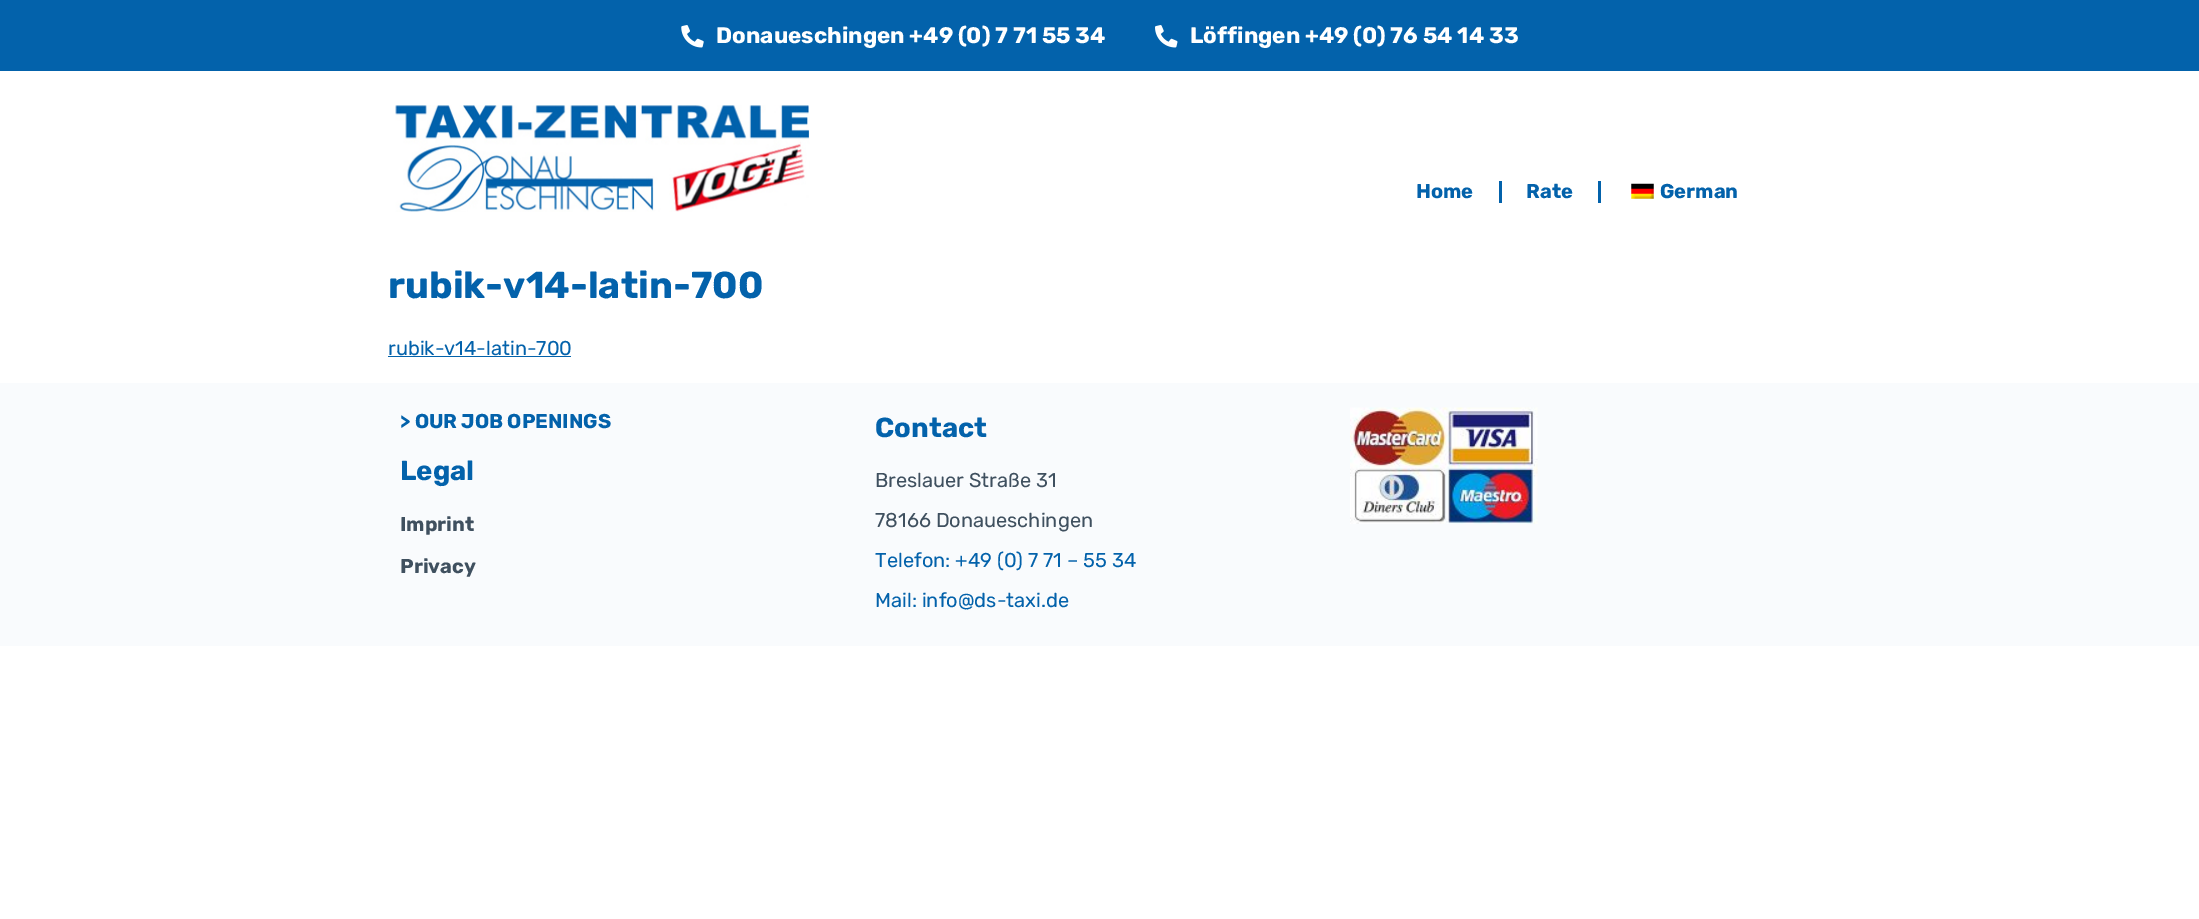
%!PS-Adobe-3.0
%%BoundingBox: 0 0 2199 919
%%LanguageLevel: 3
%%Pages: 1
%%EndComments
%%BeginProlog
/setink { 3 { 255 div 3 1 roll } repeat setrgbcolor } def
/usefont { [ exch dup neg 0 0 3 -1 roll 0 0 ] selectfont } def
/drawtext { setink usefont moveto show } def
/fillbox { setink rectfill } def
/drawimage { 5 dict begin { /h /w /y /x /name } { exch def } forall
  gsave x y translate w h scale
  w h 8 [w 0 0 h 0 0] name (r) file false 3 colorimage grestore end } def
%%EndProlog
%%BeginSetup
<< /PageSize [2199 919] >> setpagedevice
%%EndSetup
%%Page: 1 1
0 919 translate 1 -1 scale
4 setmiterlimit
0 0 2199 919 255 255 255 fillbox
0 0 2199 71 3 98 171 fillbox
(assets/img1.rgb) 681 25 23 23 drawimage
(Donaueschingen +49 \(0\) 7 71 55 34) 716 43 /Rubik-Light 22.5 255 255 255 drawtext
(assets/img2.rgb) 1155 25 23 23 drawimage
(Löffingen +49 \(0\) 76 54 14 33) 1190 43 /Rubik-Light 22.5 255 255 255 drawtext
(assets/img3.rgb) 395 105 415 107 drawimage
(Home) 1416 198 /Rubik-Light 20 3 98 171 drawtext
1499 181 3 22 3 98 171 fillbox
(Rate) 1526 198 /Rubik-Light 20 3 98 171 drawtext
1598 181 3 22 3 98 171 fillbox
(assets/img4.rgb) 1631 183 23 16 drawimage
(German) 1660 198 /Rubik-Light 20 3 98 171 drawtext
(rubik-v14-latin-700) 388 298 /Rubik-Light 37.5 3 98 171 drawtext
(rubik-v14-latin-700) 388 355 /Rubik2-Light 20 3 98 171 drawtext
388 356 183 1 3 98 171 fillbox
0 383 2199 263 249 251 253 fillbox
(> OUR JOB OPENINGS) 400 428 /Rubik-Light 20 3 98 171 drawtext
(Legal) 400 480 /Rubik-Light 27.5 3 98 171 drawtext
(Imprint) 400 531 /Rubik-Light 20 63 80 95 drawtext
(Privacy) 400 573 /Rubik-Light 20 63 80 95 drawtext
(Contact) 875 437 /Rubik-Light 27.5 3 98 171 drawtext
(Breslauer Straße 31) 875 487 /Rubik2-Light 20 63 80 95 drawtext
(78166 Donaueschingen) 875 527 /Rubik2-Light 20 63 80 95 drawtext
(Telefon: +49 \(0\) 7 71 – 55 34) 875 567 /Rubik2-Light 20 3 98 171 drawtext
(Mail: info@ds-taxi.de) 875 607 /Rubik2-Light 20 3 98 171 drawtext
(assets/img5.rgb) 1350 407 188 117 drawimage
showpage
%%EOF
